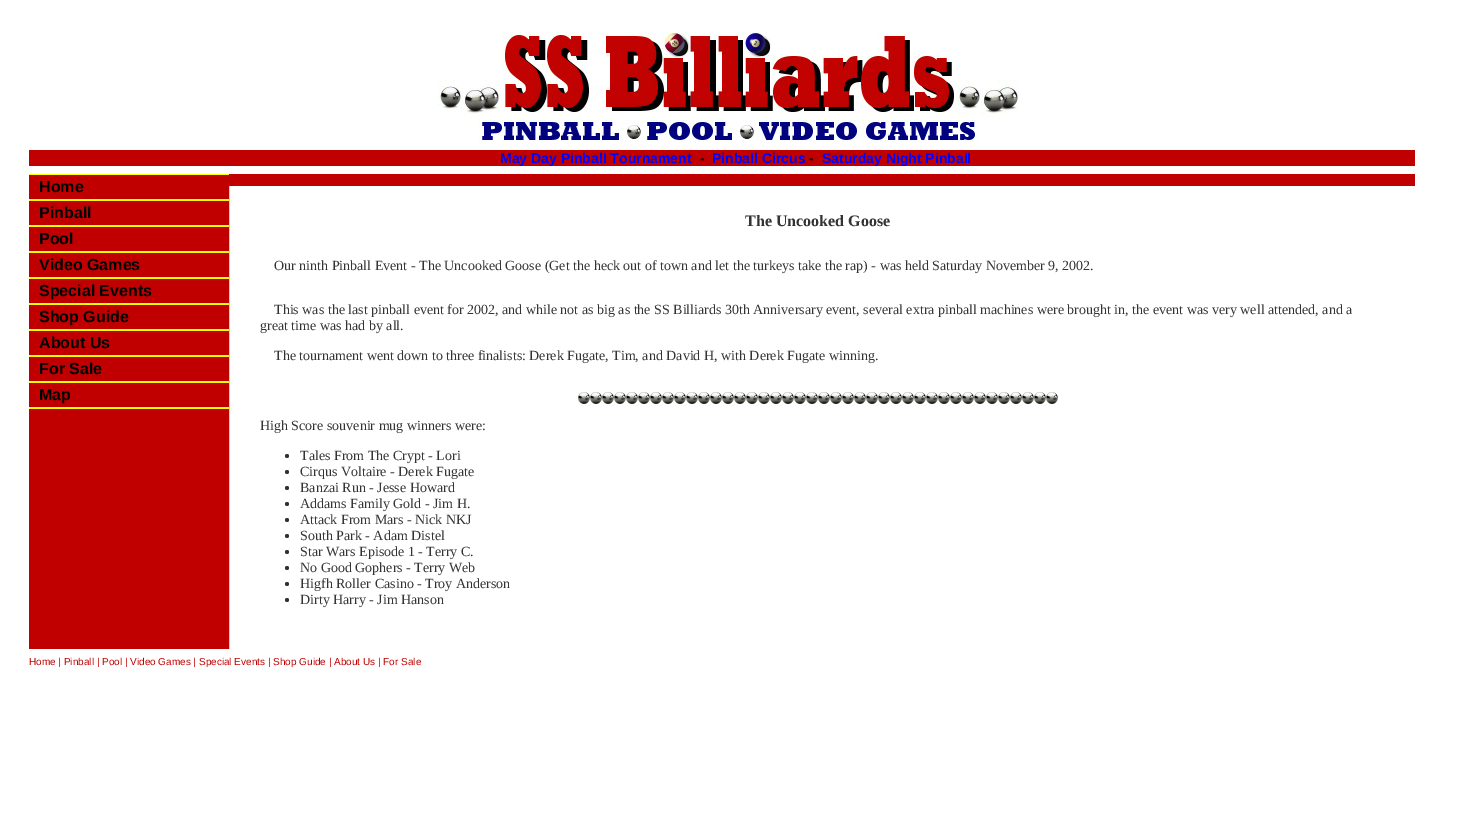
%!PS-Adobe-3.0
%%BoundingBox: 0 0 1459 824
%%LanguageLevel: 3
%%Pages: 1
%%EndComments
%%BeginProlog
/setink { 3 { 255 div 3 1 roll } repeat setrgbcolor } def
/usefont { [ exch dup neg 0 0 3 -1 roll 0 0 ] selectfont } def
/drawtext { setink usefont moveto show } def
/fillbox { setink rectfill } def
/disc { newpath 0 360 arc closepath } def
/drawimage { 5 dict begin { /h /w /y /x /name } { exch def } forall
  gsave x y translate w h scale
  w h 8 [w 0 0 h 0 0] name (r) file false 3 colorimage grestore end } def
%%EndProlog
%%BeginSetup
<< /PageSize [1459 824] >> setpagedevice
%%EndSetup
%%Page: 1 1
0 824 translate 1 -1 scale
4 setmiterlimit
0 0 1459 824 255 255 255 fillbox
(assets/img1.rgb) 438 32 582 112 drawimage
29 150 1386 16 192 0 0 fillbox
(May Day Pinball Tournament) 500 163 /LiberationSans-Bold 14 0 0 255 drawtext
(-) 700 163 /LiberationSans-Bold 14 0 0 0 drawtext
(Pinball Circus) 712 163 /LiberationSans-Bold 14 0 0 255 drawtext
(-) 809 163 /LiberationSans-Bold 14 0 0 0 drawtext
(Saturday Night Pinball) 822 163 /LiberationSans-Bold 14 0 0 255 drawtext
29 174 1386 475 192 0 0 fillbox
29 407 200 2 255 255 0 fillbox
29 174 200 1 255 255 0 fillbox
29 199 200 2 255 255 0 fillbox
(Home) 39 192 /LiberationSans-Bold 16 0 0 0 drawtext
29 225 200 2 255 255 0 fillbox
(Pinball) 39 218 /LiberationSans-Bold 16 0 0 0 drawtext
29 251 200 2 255 255 0 fillbox
(Pool) 39 244 /LiberationSans-Bold 16 0 0 0 drawtext
29 277 200 2 255 255 0 fillbox
(Video Games) 39 270 /LiberationSans-Bold 16 0 0 0 drawtext
29 303 200 2 255 255 0 fillbox
(Special Events) 39 296 /LiberationSans-Bold 16 0 0 0 drawtext
29 329 200 2 255 255 0 fillbox
(Shop Guide) 39 322 /LiberationSans-Bold 16 0 0 0 drawtext
29 355 200 2 255 255 0 fillbox
(About Us) 39 348 /LiberationSans-Bold 16 0 0 0 drawtext
29 381 200 2 255 255 0 fillbox
(For Sale) 39 374 /LiberationSans-Bold 16 0 0 0 drawtext
(Map) 39 400 /LiberationSans-Bold 16 0 0 0 drawtext
230 186 1185 463 255 255 255 fillbox
229 186 1 463 204 210 210 fillbox
(The Uncooked Goose) 745 226 /LiberationSerif-Bold 16 51 51 51 drawtext
(Our ninth Pinball Event - The Uncooked Goose \(Get the heck out of town and let the turkeys take the rap\) - was held Saturday November 9, 2002.) 274 270 /LiberationSerif-Regular 14 51 51 51 drawtext
(This was the last pinball event for 2002, and while not as big as the SS Billiards 30th Anniversary event, several extra pinball machines were brought in, the event was very well attended, and a) 274 314 /LiberationSerif-Regular 14 51 51 51 drawtext
(great time was had by all.) 260 330 /LiberationSerif-Regular 14 51 51 51 drawtext
(The tournament went down to three finalists: Derek Fugate, Tim, and David H, with Derek Fugate winning.) 274 360 /LiberationSerif-Regular 14 51 51 51 drawtext
(assets/img2.rgb) 578 392 480 12 drawimage
(High Score souvenir mug winners were:) 260 430 /LiberationSerif-Regular 14 51 51 51 drawtext
287 456 2 disc fill
(Tales From The Crypt - Lori) 300 460 /LiberationSerif-Regular 14 51 51 51 drawtext
287 472 2 disc fill
(Cirqus Voltaire - Derek Fugate) 300 476 /LiberationSerif-Regular 14 51 51 51 drawtext
287 488 2 disc fill
(Banzai Run - Jesse Howard) 300 492 /LiberationSerif-Regular 14 51 51 51 drawtext
287 504 2 disc fill
(Addams Family Gold - Jim H.) 300 508 /LiberationSerif-Regular 14 51 51 51 drawtext
287 520 2 disc fill
(Attack From Mars - Nick NKJ) 300 524 /LiberationSerif-Regular 14 51 51 51 drawtext
287 536 2 disc fill
(South Park - Adam Distel) 300 540 /LiberationSerif-Regular 14 51 51 51 drawtext
287 552 2 disc fill
(Star Wars Episode 1 - Terry C.) 300 556 /LiberationSerif-Regular 14 51 51 51 drawtext
287 568 2 disc fill
(No Good Gophers - Terry Web) 300 572 /LiberationSerif-Regular 14 51 51 51 drawtext
287 584 2 disc fill
(Higfh Roller Casino - Troy Anderson) 300 588 /LiberationSerif-Regular 14 51 51 51 drawtext
287 600 2 disc fill
(Dirty Harry - Jim Hanson) 300 604 /LiberationSerif-Regular 14 51 51 51 drawtext
(Home | Pinball | Pool | Video Games | Special Events | Shop Guide | About Us | For Sale) 29 665 /LiberationSans-Regular 10 192 0 0 drawtext
showpage
%%EOF
